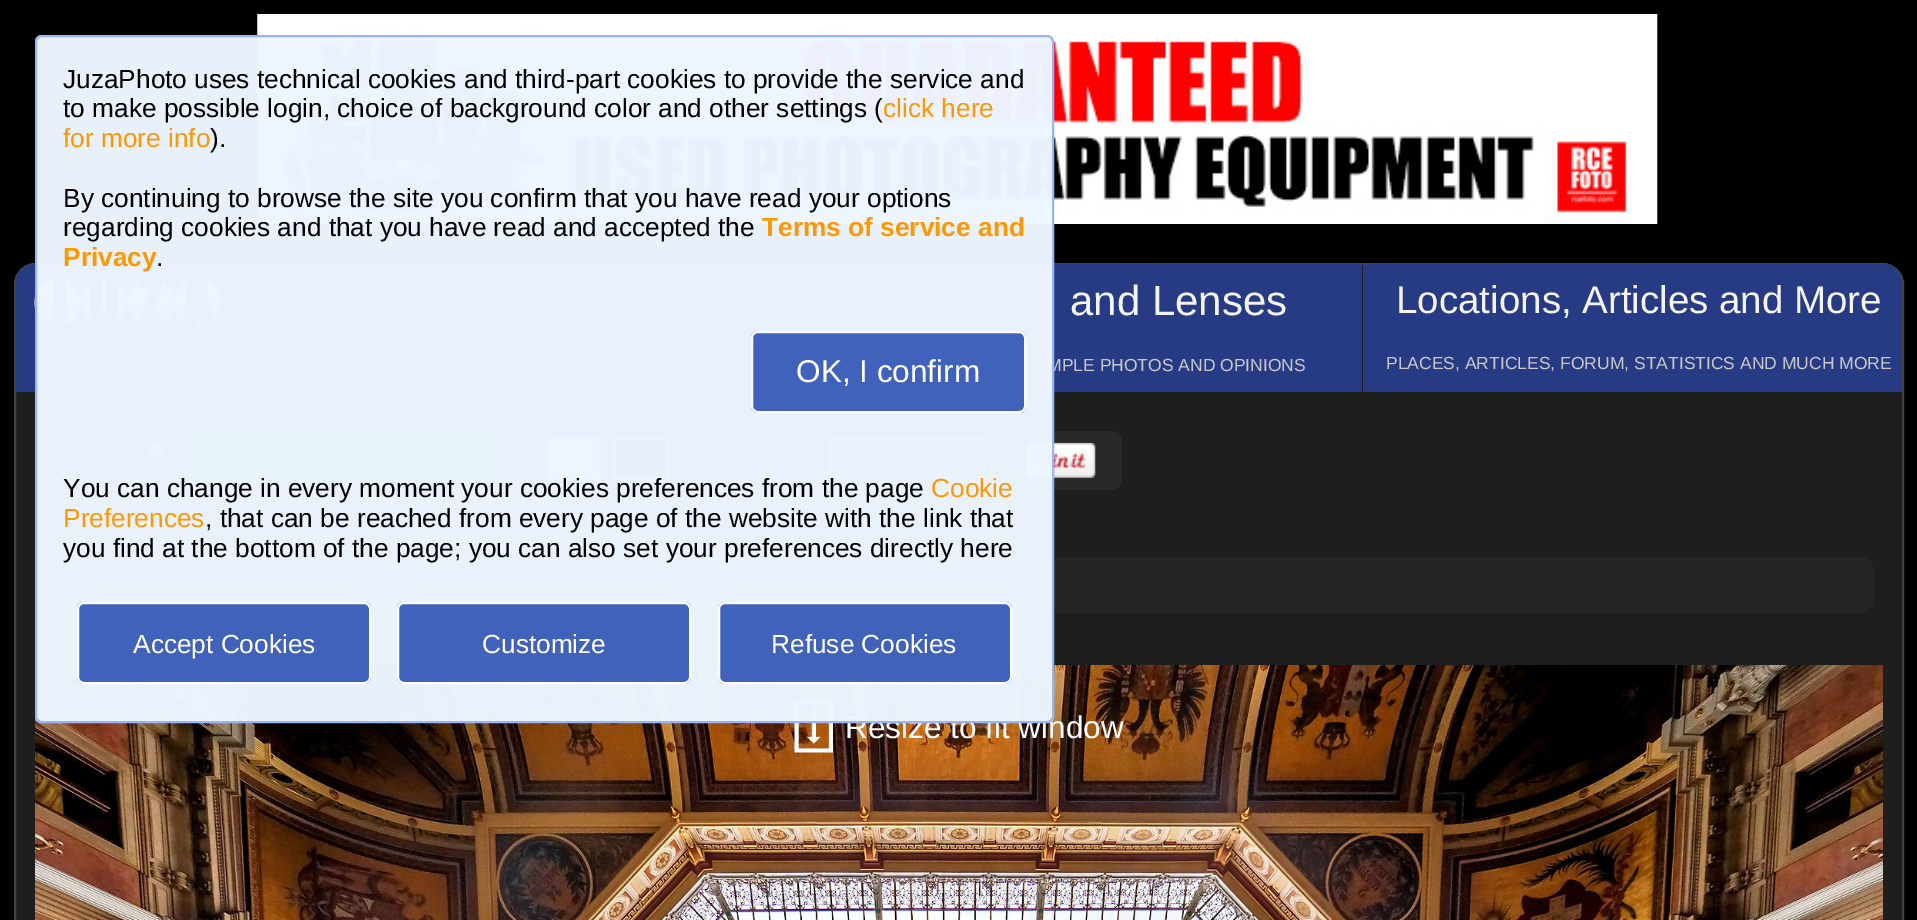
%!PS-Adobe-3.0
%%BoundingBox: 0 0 1917 920
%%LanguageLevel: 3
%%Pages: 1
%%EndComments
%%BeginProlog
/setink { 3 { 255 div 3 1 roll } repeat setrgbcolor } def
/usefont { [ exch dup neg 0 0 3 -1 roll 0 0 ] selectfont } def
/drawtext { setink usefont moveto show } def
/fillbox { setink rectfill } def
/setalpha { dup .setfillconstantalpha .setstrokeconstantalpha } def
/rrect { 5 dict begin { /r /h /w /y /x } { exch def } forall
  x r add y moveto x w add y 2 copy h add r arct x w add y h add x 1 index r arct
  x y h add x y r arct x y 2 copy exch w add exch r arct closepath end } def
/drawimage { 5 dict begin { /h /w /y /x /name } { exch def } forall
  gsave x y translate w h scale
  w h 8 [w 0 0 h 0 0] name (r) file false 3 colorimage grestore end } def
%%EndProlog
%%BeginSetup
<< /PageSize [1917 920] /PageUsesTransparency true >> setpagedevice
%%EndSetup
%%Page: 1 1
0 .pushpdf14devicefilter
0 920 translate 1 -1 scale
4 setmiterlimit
0 0 1917 920 0 0 0 fillbox
(assets/img1.rgb) 257 14 1401 210 drawimage
30 30 30 setink
15 264 1888 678 20 rrect gsave fill grestore
66 66 66 setink
2 setlinewidth
stroke
0.95 setalpha
39 60 137 setink
35 264 moveto 259 264 lineto 259 392 lineto 16 392 lineto 16 283 lineto 16 272.5 24.5 264 35 264 curveto closepath fill
1 setalpha
(assets/img2.rgb) 34 278 202 49 drawimage
0.95 setalpha
261 264 549 128 39 60 137 fillbox
812 264 550 128 39 60 137 fillbox
1 setalpha
(MPLE PHOTOS AND OPINIONS) 1047 371 /LiberationSans-Regular 17.5 201 201 201 drawtext
41 41 41 setink
51 429 moveto 194 429 lineto 194 481 lineto 51 481 lineto 45 481 40 476 40 470 curveto 40 440 lineto 40 434 45 429 51 429 curveto closepath fill
(assets/img3.rgb) 146 440 20 19 drawimage
0 128 0 setink
196 429 moveto 488 429 lineto 494 429 499 434 499 440 curveto 499 470 lineto 499 476 494 481 488 481 curveto 196 481 lineto closepath fill
41 41 41 setink
522 431 600 59 11 rrect fill
234 234 234 setink
547 439 moveto 599 439 lineto 599 479 lineto 547 479 lineto closepath gsave fill grestore
187 187 187 setink
stroke
4 4 4 setink
615 439 moveto 668 439 lineto 668 479 lineto 615 479 lineto closepath gsave fill grestore
187 187 187 setink
stroke
681 438 136 2 129 150 211 fillbox
681 476 37 2 129 150 211 fillbox
681 438 2 40 129 150 211 fillbox
683 440 133 36 54 80 157 fillbox
816 438 2 40 129 150 211 fillbox
86 144 75 setink
831 439 moveto 984 439 lineto 984 477 lineto 831 477 lineto closepath gsave fill grestore
170 204 163 setink
stroke
718 476 99 2 129 150 211 fillbox
(assets/img4.rgb) 1025 442 71 36 drawimage
37 37 37 setink
35 557 1839 56 14 rrect fill
(assets/img5.rgb) 35 665 1848 255 drawimage
(assets/img6.rgb) 794 700 39 53 drawimage
(Resize to fit window) 845 738 /LiberationSans-Regular 31.5 255 255 255 drawtext
0.98 setalpha
237 245 255 setink
35 35 1019 688 7 rrect fill
151 181 244 setink
36 36 1017 686 6 rrect stroke
1 setalpha
(JuzaPhoto) 63 88 /LiberationSans-Regular 26.25 0 0 0 drawtext
(uses technical cookies and third-part cookies to provide the service and) 194 88 /LiberationSans-Regular 26.25 0 0 0 drawtext
(to make possible login, choice of background color and other settings \() 63 117 /LiberationSans-Regular 26.25 0 0 0 drawtext
(click here) 883 117 /LiberationSans-Regular 26.25 251 153 5 drawtext
(for more info) 63 147 /LiberationSans-Regular 26.25 251 153 5 drawtext
(\).) 210 147 /LiberationSans-Regular 26.25 0 0 0 drawtext
(By continuing to browse the site you confirm that you have read your options) 63 207 /LiberationSans-Regular 26.25 0 0 0 drawtext
(regarding cookies and that you have read and accepted the) 63 236 /LiberationSans-Regular 26.25 0 0 0 drawtext
(Terms of service and) 762 236 /LiberationSans-Bold 26.25 251 153 5 drawtext
(Privacy) 63 266 /LiberationSans-Bold 26.25 251 153 5 drawtext
(.) 156 266 /LiberationSans-Regular 26.25 0 0 0 drawtext
0.98 setalpha
61 95 186 setink
751 331 275 82 7 rrect fill
255 255 255 setink
752 332 273 80 6 rrect stroke
1 setalpha
(OK, I confirm) 796 382 /LiberationSans-Regular 31.5 255 255 255 drawtext
(You can change in every moment your cookies preferences from the page) 63 497 /LiberationSans-Regular 26.25 0 0 0 drawtext
(Cookie) 931 497 /LiberationSans-Regular 26.25 251 153 5 drawtext
(Preferences) 63 527 /LiberationSans-Regular 26.25 251 153 5 drawtext
(, that can be reached from every page of the website with the link that) 205 527 /LiberationSans-Regular 26.25 0 0 0 drawtext
(you find at the bottom of the page; you can also set your preferences directly here) 63 557 /LiberationSans-Regular 26.25 0 0 0 drawtext
0.98 setalpha
61 95 186 setink
77 602 294 82 7 rrect fill
255 255 255 setink
78 603 292 80 6 rrect stroke
1 setalpha
(Accept Cookies) 133 653 /LiberationSans-Regular 26.25 255 255 255 drawtext
0.98 setalpha
61 95 186 setink
397 602 294 82 7 rrect fill
255 255 255 setink
398 603 292 80 6 rrect stroke
1 setalpha
(Customize) 482 653 /LiberationSans-Regular 26.25 255 255 255 drawtext
0.98 setalpha
61 95 186 setink
718 602 294 82 7 rrect fill
255 255 255 setink
719 603 292 80 6 rrect stroke
1 setalpha
(Refuse Cookies) 771 653 /LiberationSans-Regular 26.25 255 255 255 drawtext
(and Lenses) 1070 315 /LiberationSans-Regular 42 244 244 244 drawtext
0.95 setalpha
39 60 137 setink
1363 264 moveto 1883 264 lineto 1893.5 264 1902 272.5 1902 283 curveto 1902 392 lineto 1363 392 lineto closepath fill
1 setalpha
(Locations, Articles and More) 1396 313 /LiberationSans-Regular 38.5 244 244 244 drawtext
(PLACES, ARTICLES, FORUM, STATISTICS AND MUCH MORE) 1386 369 /LiberationSans-Regular 17.5 201 201 201 drawtext
.poppdf14devicefilter showpage
%%EOF
